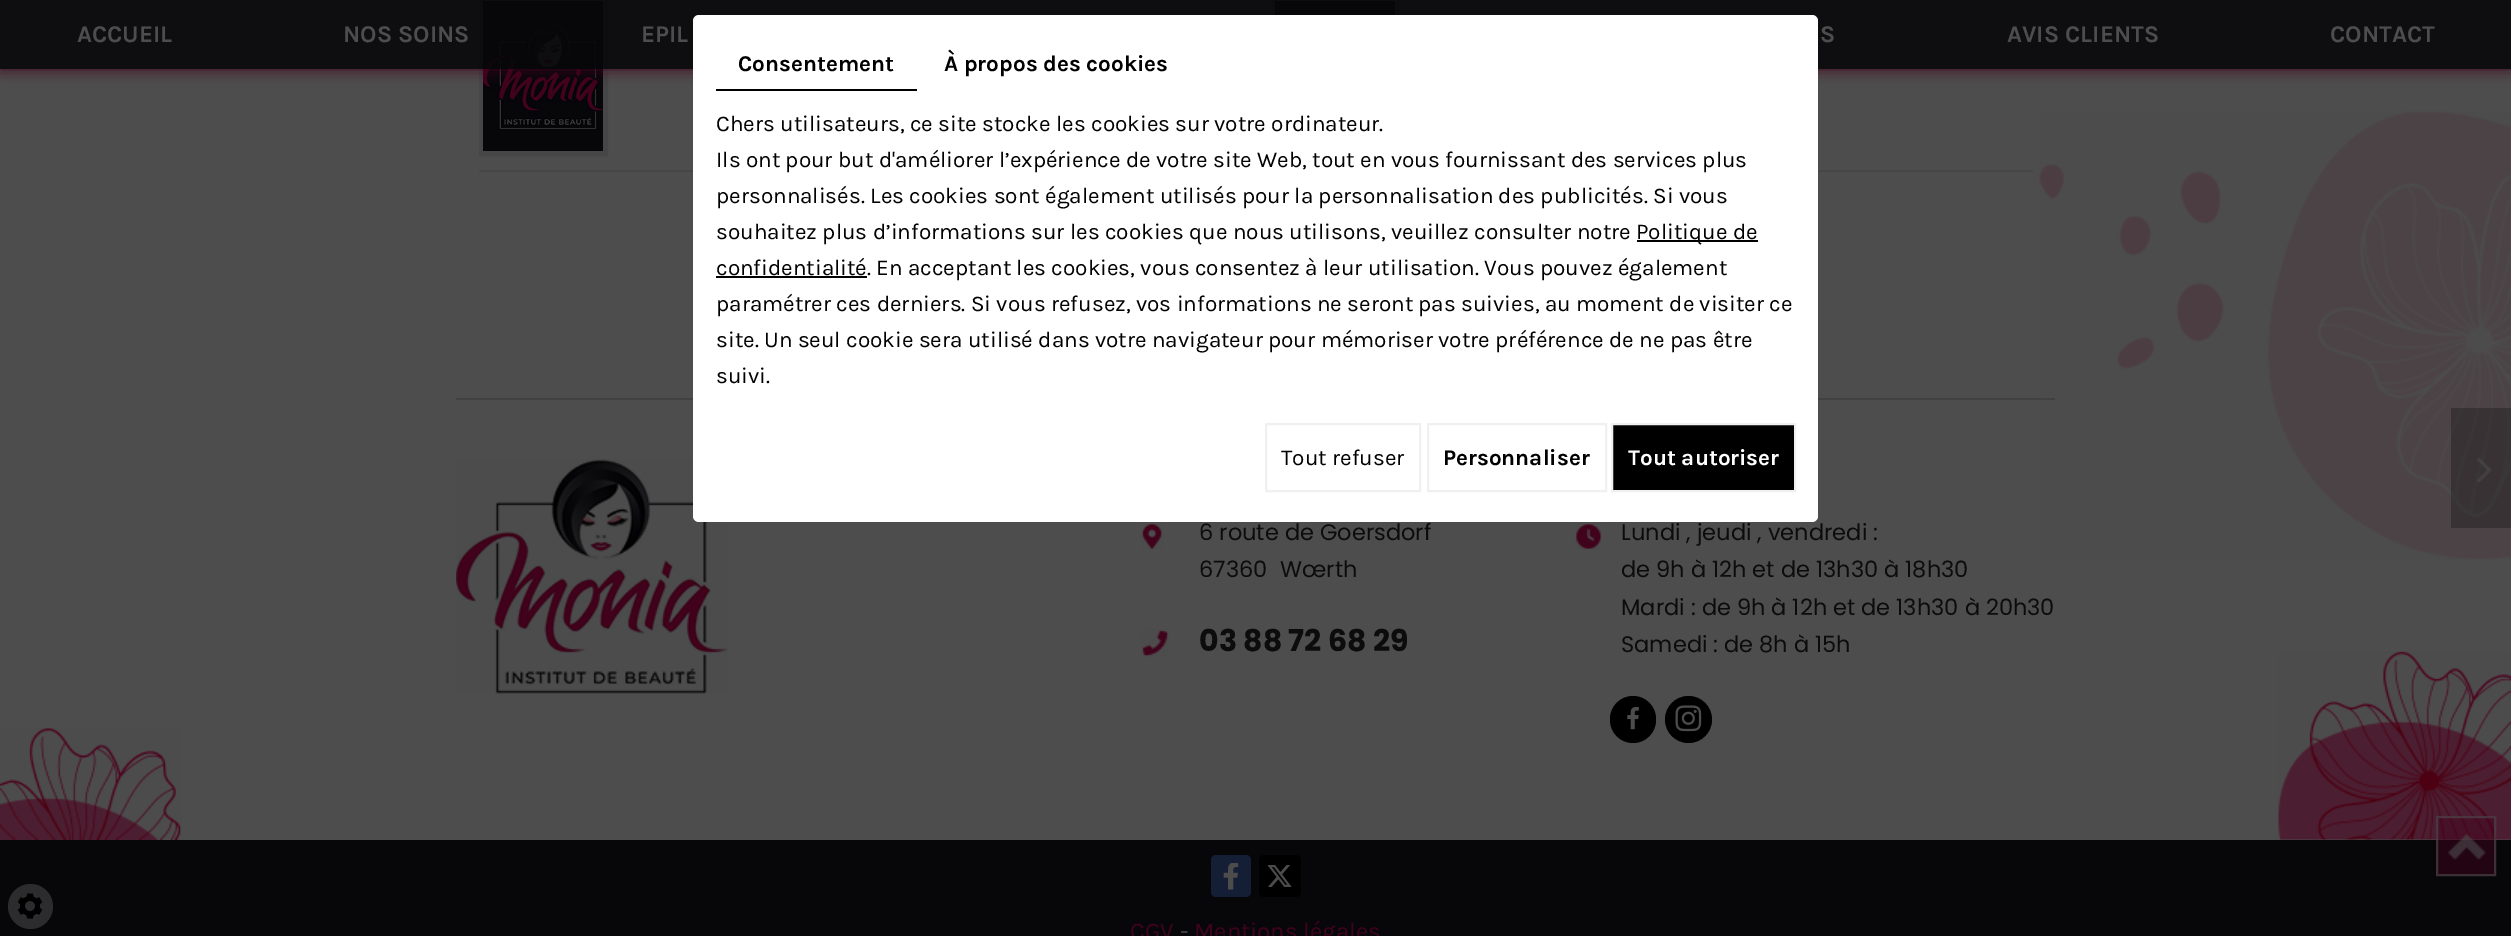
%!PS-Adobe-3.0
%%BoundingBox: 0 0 2511 936
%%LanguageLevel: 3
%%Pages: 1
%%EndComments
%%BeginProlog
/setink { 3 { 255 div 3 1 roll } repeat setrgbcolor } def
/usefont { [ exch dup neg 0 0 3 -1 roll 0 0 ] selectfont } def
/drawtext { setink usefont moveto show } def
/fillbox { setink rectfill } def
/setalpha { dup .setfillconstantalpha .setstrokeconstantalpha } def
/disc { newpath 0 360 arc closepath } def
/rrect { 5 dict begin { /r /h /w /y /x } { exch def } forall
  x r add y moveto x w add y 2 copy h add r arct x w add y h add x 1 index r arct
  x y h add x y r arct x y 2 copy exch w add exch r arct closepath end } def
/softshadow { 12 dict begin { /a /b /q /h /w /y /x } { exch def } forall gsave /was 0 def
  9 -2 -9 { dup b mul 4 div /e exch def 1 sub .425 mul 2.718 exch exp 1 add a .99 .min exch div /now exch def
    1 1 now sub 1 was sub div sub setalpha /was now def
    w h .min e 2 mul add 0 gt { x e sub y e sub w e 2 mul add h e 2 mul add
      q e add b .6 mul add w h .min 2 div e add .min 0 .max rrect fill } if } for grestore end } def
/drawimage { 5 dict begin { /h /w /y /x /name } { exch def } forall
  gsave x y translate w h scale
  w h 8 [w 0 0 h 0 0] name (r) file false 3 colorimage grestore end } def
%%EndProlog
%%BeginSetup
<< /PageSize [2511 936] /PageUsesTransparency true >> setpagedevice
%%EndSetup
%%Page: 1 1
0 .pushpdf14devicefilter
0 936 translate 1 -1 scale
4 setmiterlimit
0 0 2511 936 77 77 77 fillbox
70 70 70 setink
5 setlinewidth
481.5 -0.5 124 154 rectstroke
(assets/img1.rgb) 483 1 120 150 drawimage
479 170 214 2 70 70 70 fillbox
1273.5 -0.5 124 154 rectstroke
(assets/img2.rgb) 1275 1 120 14 drawimage
1818 170 215 2 70 70 70 fillbox
(assets/img4.rgb) 2039 111 472 449 drawimage
0.25 setalpha
2451 408 60 120 0 0 0 fillbox
1 setalpha
(assets/img3.rgb) 2477 457 15 26 drawimage
gsave
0 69 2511 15 rectclip
65 2 28 setink
0 0 2511 69 0 7.5 1 softshadow
grestore
0.9 setalpha
0 0 2511 69 7 6 9 fillbox
1 setalpha
(ACCUEIL) 77 42 /Karla-Bold 24 77 77 77 drawtext
(NOS SOINS) 343 42 /Karla-Bold 24 77 77 77 drawtext
(EPIL) 641 42 /Karla-Bold 24 77 77 77 drawtext
(S) 1820 42 /Karla-Bold 24 77 77 77 drawtext
(AVIS CLIENTS) 2007 42 /Karla-Bold 24 77 77 77 drawtext
(CONTACT) 2330 42 /Karla-Bold 24 77 77 77 drawtext
456 398 1599 2 65 65 65 fillbox
(assets/img5.rgb) 456 459 272 235 drawimage
(assets/img6.rgb) 1141 523 22 26 drawimage
(6 route de Goersdorf) 1199 540 /Poppins-Regular 22.5 12 12 12 drawtext
(67360) 1199 577 /Poppins-Regular 22.5 12 12 12 drawtext
(Wœrth) 1280 577 /Poppins-Regular 22.5 12 12 12 drawtext
(assets/img7.rgb) 1141 629 28 28 drawimage
(03 88 72 68 29) 1199 651 /Poppins-Bold 30 12 12 12 drawtext
(assets/img8.rgb) 1575 523 27 27 drawimage
(Lundi , jeudi , vendredi :) 1621 540 /Poppins-Regular 22.5 12 12 12 drawtext
(de 9h à 12h et de 13h30 à 18h30) 1621 577 /Poppins-Regular 22.5 12 12 12 drawtext
(Mardi : de 9h à 12h et de 13h30 à 20h30) 1621 615 /Poppins-Regular 22.5 12 12 12 drawtext
(Samedi : de 8h à 15h) 1621 652 /Poppins-Regular 22.5 12 12 12 drawtext
0 0 0 setink
1610 696 46 47 23 rrect fill
(assets/img9.rgb) 1627 706 12 24 drawimage
1688.5 719.5 23.5 disc fill
(assets/img10.rgb) 1675 705 27 27 drawimage
(assets/img11.rgb) 0 728 182 112 drawimage
(assets/img12.rgb) 2278 651 233 189 drawimage
0 840 2511 96 7 6 9 fillbox
0.48 setalpha
2436 816 60 60 65 2 28 fillbox
1 setalpha
(assets/img13.rgb) 2447 833 39 27 drawimage
0.6 setalpha
77 77 77 setink
2 setlinewidth
2437 817 58 58 rectstroke
1 setalpha
20 31 53 setink
1211 855 40 42 5 rrect fill
(assets/img14.rgb) 1223 863 16 27 drawimage
0 0 0 setink
1259 855 42 42 5 rrect fill
(assets/img15.rgb) 1267 865 25 22 drawimage
(CGV) 1130 939 /Karla-Regular 24 65 2 28 drawtext
(-) 1180 939 /Karla-Regular 24 77 77 77 drawtext
(Mentions légales) 1194 939 /Karla-Regular 24 65 2 28 drawtext
255 255 255 setink
693 15 1125 507 6 rrect fill
716 89 201 2 0 0 0 fillbox
(Consentement) 738 71 /Karla-Bold 22.5 0 0 0 drawtext
(À propos des cookies) 944 71 /Karla-Bold 22.5 0 0 0 drawtext
(Chers utilisateurs, ce site stocke les cookies sur votre ordinateur.) 716 131 /Karla-Regular 22.5 0 0 0 drawtext
(Ils ont pour but d'améliorer l’expérience de votre site Web, tout en vous fournissant des services plus) 716 167 /Karla-Regular 22.5 0 0 0 drawtext
(personnalisés. Les cookies sont également utilisés pour la personnalisation des publicités. Si vous) 716 203 /Karla-Regular 22.5 0 0 0 drawtext
(souhaitez plus d’informations sur les cookies que nous utilisons, veuillez consulter notre) 716 239 /Karla-Regular 22.5 0 0 0 drawtext
1637 240 121 2 0 0 0 fillbox
(Politique de) 1636 239 /Karla-Regular 22.5 0 0 0 drawtext
716 276 151 2 0 0 0 fillbox
(confidentialité. En acceptant les cookies, vous consentez à leur utilisation. Vous pouvez également) 716 275 /Karla-Regular 22.5 0 0 0 drawtext
(paramétrer ces derniers. Si vous refusez, vos informations ne seront pas suivies, au moment de visiter ce) 716 311 /Karla-Regular 22.5 0 0 0 drawtext
(site. Un seul cookie sera utilisé dans votre navigateur pour mémoriser votre préférence de ne pas être) 716 347 /Karla-Regular 22.5 0 0 0 drawtext
(suivi.) 716 383 /Karla-Regular 22.5 0 0 0 drawtext
240 240 240 setink
1266 424 154 67 rectstroke
(Tout refuser) 1281 465 /Karla-Regular 22.5 0 0 0 drawtext
240 240 240 setink
1428 424 178 67 rectstroke
(Personnaliser) 1443 465 /Karla-Bold 22.5 0 0 0 drawtext
1612 424 moveto 1795 424 lineto 1795 491 lineto 1612 491 lineto closepath gsave fill grestore
240 240 240 setink
stroke
(Tout autoriser) 1628 465 /Karla-Bold 22.5 255 255 255 drawtext
44 44 46 setink
30.5 906.5 22.5 disc fill
(assets/img16.rgb) 17 893 26 26 drawimage
.poppdf14devicefilter showpage
%%EOF
